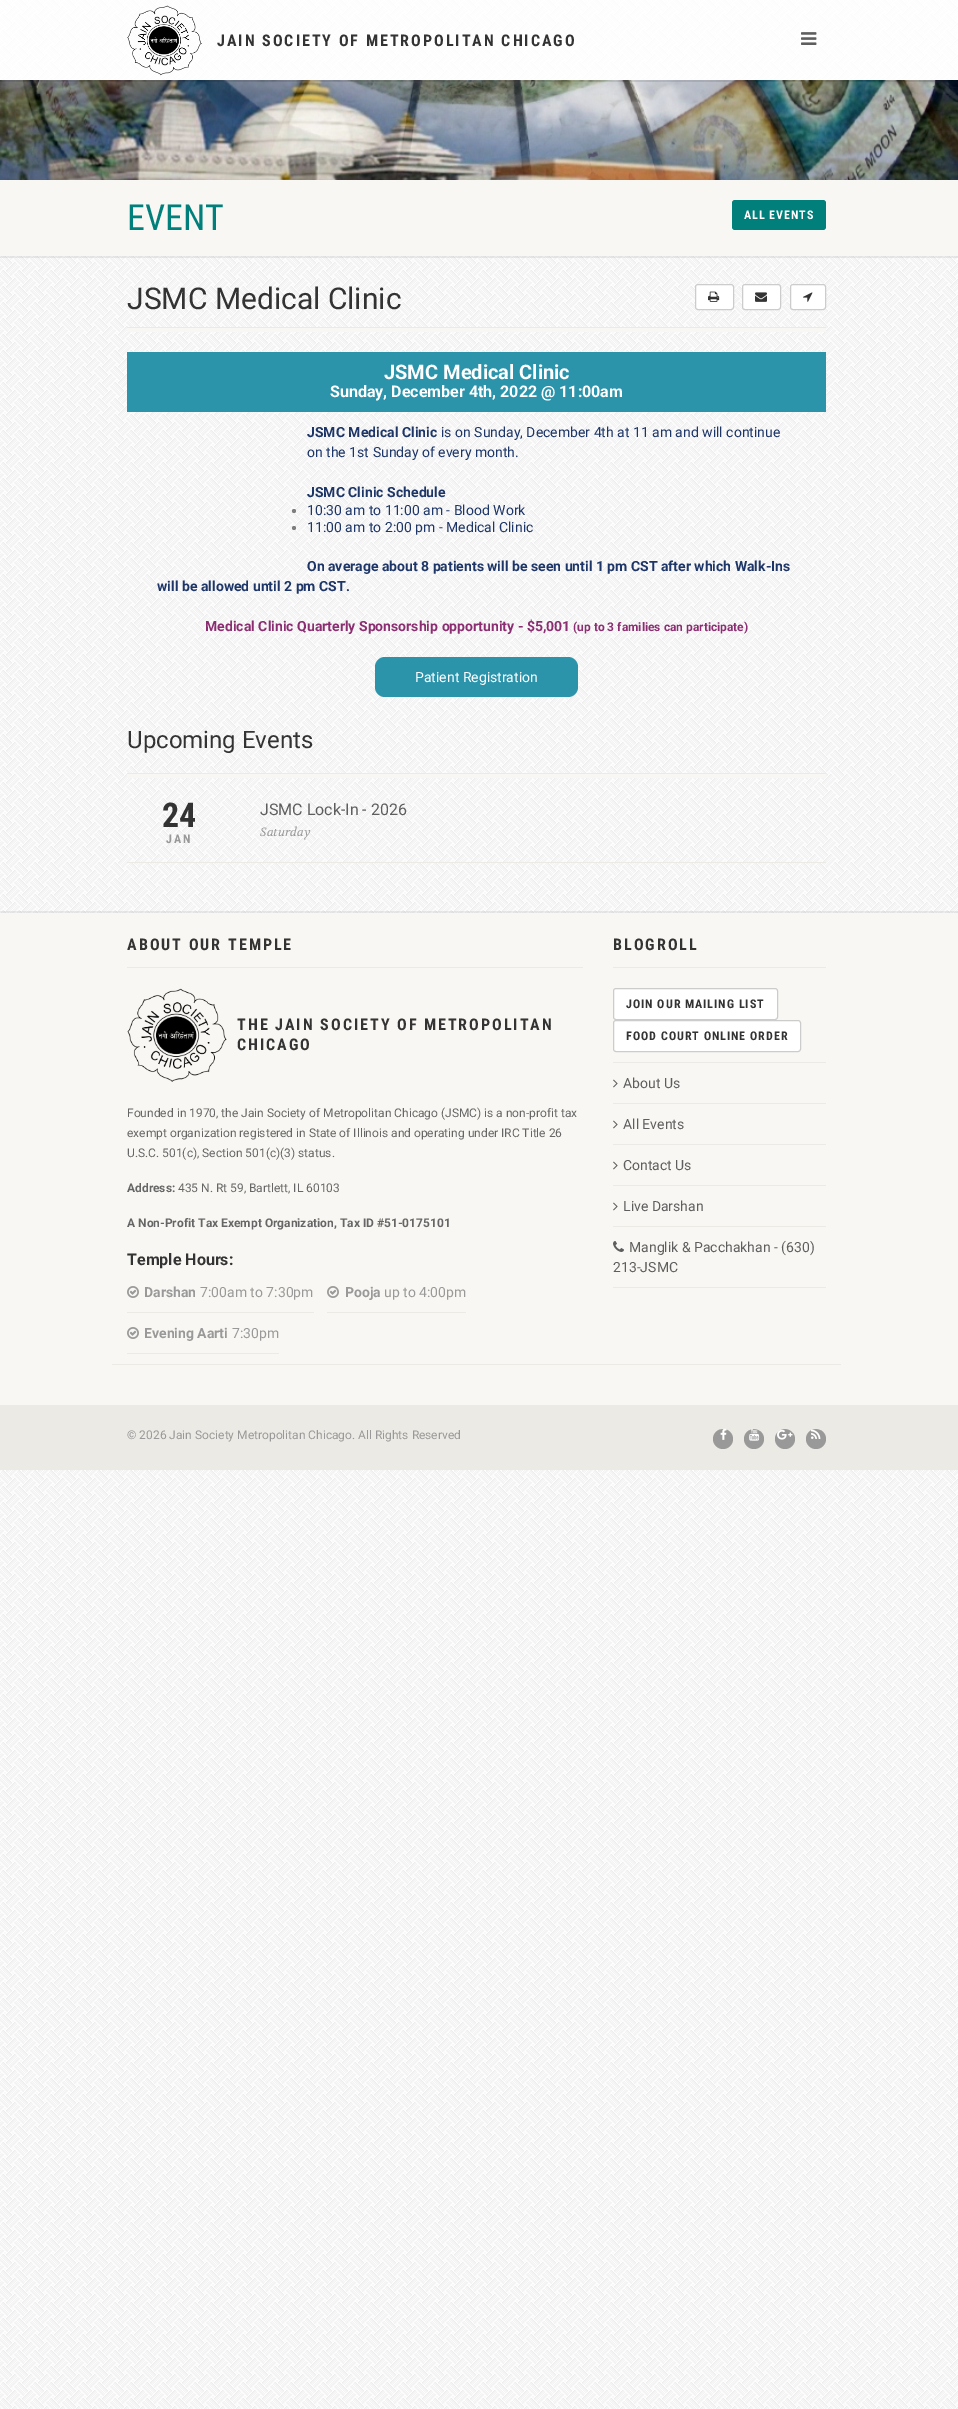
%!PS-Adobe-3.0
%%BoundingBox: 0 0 958 2409
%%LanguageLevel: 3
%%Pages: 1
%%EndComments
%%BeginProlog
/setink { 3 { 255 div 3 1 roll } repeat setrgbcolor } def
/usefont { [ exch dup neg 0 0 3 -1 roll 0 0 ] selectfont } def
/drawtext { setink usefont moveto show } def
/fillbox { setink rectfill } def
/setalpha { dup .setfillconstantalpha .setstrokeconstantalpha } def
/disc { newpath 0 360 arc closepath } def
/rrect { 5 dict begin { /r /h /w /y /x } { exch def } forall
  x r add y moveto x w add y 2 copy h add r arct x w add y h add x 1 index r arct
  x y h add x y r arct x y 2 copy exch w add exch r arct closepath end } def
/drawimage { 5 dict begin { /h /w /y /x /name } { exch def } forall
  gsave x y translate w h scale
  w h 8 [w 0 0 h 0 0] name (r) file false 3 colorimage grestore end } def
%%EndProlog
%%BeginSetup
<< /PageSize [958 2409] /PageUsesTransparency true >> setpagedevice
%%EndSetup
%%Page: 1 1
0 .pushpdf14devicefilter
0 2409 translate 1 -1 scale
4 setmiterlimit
0 0 958 2409 255 255 255 fillbox
(assets/img1.rgb) 0 0 958 2409 drawimage
(assets/img4.rgb) 0 80 958 100 drawimage
0.1 setalpha
0 80 958 2 0 0 0 fillbox
0.8 setalpha
0 0 958 80 255 255 255 fillbox
1 setalpha
(assets/img2.rgb) 127 5 75 71 drawimage
/RobotoCondensed-Bold 16 usefont
51 51 51 setink
217 46 moveto 2 0 (JAIN SOCIETY OF METROPOLITAN CHICAGO) ashow
(assets/img3.rgb) 801 32 16 13 drawimage
0.07 setalpha
0 256 958 2 0 0 0 fillbox
1 setalpha
0 180 958 76 248 247 243 fillbox
(EVENT) 127 230 /RobotoCondensed-Regular 36 0 127 123 drawtext
732 200 94 30 3 rrect fill
/RobotoCondensed-Bold 12 usefont
255 255 255 setink
744 219 moveto 1 0 (ALL EVENTS) ashow
127 327 699 1 236 234 228 fillbox
(JSMC Medical Clinic) 127 309 /Roboto-Regular 30 51 51 51 drawtext
255 255 255 setink
695.5 284.5 38 25 2.5 rrect gsave fill grestore
204 204 204 setink
stroke
(assets/img5.rgb) 708 291 12 11 drawimage
255 255 255 setink
742.5 284.5 38 25 2.5 rrect gsave fill grestore
204 204 204 setink
stroke
(assets/img6.rgb) 755 292 12 10 drawimage
255 255 255 setink
790.5 284.5 35 25 2.5 rrect gsave fill grestore
204 204 204 setink
stroke
(assets/img7.rgb) 803 292 10 10 drawimage
127 328 699 4 248 247 243 fillbox
127 352 699 60 43 148 171 fillbox
(JSMC Medical Clinic) 384 379 /Roboto-Bold 20 255 255 255 drawtext
(Sunday, December 4th, 2022 @ 11:00am) 330 397 /Roboto-Bold 16 255 255 255 drawtext
(JSMC Medical Clinic) 307 437 /Roboto-Bold 14 29 53 103 drawtext
(is on Sunday, December 4th at 11 am and will continue) 441 437 /Roboto-Regular 14 29 53 103 drawtext
(on the 1st Sunday of every month.) 307 457 /Roboto-Regular 14 29 53 103 drawtext
(JSMC Clinic Schedule) 307 497 /Roboto-Bold 14 29 53 103 drawtext
126 126 126 setink
294 511 2 disc fill
(10:30 am to 11:00 am - Blood Work) 307 515 /Roboto-Regular 14 29 53 103 drawtext
126 126 126 setink
294 528 2 disc fill
(11:00 am to 2:00 pm - Medical Clinic) 307 532 /Roboto-Regular 14 29 53 103 drawtext
(On average about 8 patients will be seen until 1 pm CST after which Walk-Ins) 307 571 /Roboto-Bold 14 29 53 103 drawtext
(will be allowed until 2 pm CST.) 157 591 /Roboto-Bold 14 29 53 103 drawtext
(Medical Clinic Quarterly Sponsorship opportunity - $5,001) 205 631 /Roboto-Bold 14 139 45 113 drawtext
(\(up to 3 families can participate\)) 573 631 /Roboto-Bold 12 139 45 113 drawtext
43 148 171 setink
375 657 203 40 10 rrect fill
(Patient Registration) 415 682 /Roboto-Regular 14 255 255 255 drawtext
127 774 699 4 248 247 243 fillbox
127 773 699 1 236 234 228 fillbox
(Upcoming Events) 127 748 /Roboto-Regular 24 51 51 51 drawtext
127 862 699 1 236 234 228 fillbox
(24) 162 827 /RobotoCondensed-Bold 34 51 51 51 drawtext
/RobotoCondensed-Bold 12 usefont
153 153 153 setink
166 843 moveto 2 0 (JAN) ashow
(JSMC Lock-In - 2026) 260 815 /Roboto-Regular 16 94 94 94 drawtext
(Saturday) 260 836 /Volkhov-Italic 12 153 153 153 drawtext
0.07 setalpha
0 911 958 2 0 0 0 fillbox
1 setalpha
0 913 958 492 248 247 243 fillbox
112 1364 729 1 236 234 228 fillbox
127 967 456 1 236 234 228 fillbox
/RobotoCondensed-Bold 16 usefont
51 51 51 setink
127 950 moveto 2 0 (ABOUT OUR TEMPLE) ashow
(assets/img8.rgb) 127 988 100 94 drawimage
237 1030 moveto 2 0 (THE JAIN SOCIETY OF METROPOLITAN) ashow
237 1050 moveto 2 0 (CHICAGO) ashow
(Founded in 1970, the Jain Society of Metropolitan Chicago \(JSMC\) is a non-profit tax) 127 1117 /Roboto-Regular 12 102 102 102 drawtext
(exempt organization registered in State of Illinois and operating under IRC Title 26) 127 1137 /Roboto-Regular 12 102 102 102 drawtext
(U.S.C. 501\(c\), Section 501\(c\)\(3\) status.) 127 1157 /Roboto-Regular 12 102 102 102 drawtext
(Address:) 127 1192 /Roboto-Bold 12 102 102 102 drawtext
(435 N. Rt 59, Bartlett, IL 60103) 178 1192 /Roboto-Regular 12 102 102 102 drawtext
(A Non-Profit Tax Exempt Organization, Tax ID #51-0175101) 127 1227 /Roboto-Bold 12 102 102 102 drawtext
(Temple Hours:) 127 1265 /Roboto-Bold 16 51 51 51 drawtext
127 1312 187 1 236 234 228 fillbox
(assets/img9.rgb) 127 1286 12 12 drawimage
(Darshan) 144 1297 /Roboto-Bold 14 153 153 153 drawtext
(7:00am to 7:30pm) 200 1297 /Roboto-Regular 14 153 153 153 drawtext
327 1312 139 1 236 234 228 fillbox
(assets/img9.rgb) 327 1286 12 12 drawimage
(Pooja) 345 1297 /Roboto-Bold 14 153 153 153 drawtext
(up to 4:00pm) 384 1297 /Roboto-Regular 14 153 153 153 drawtext
127 1353 152 1 236 234 228 fillbox
(assets/img9.rgb) 127 1327 12 12 drawimage
(Evening Aarti) 144 1338 /Roboto-Bold 14 153 153 153 drawtext
(7:30pm) 232 1338 /Roboto-Regular 14 153 153 153 drawtext
613 967 213 1 236 234 228 fillbox
/RobotoCondensed-Bold 16 usefont
51 51 51 setink
613 950 moveto 2 0 (BLOGROLL) ashow
613 1062 213 1 236 234 228 fillbox
255 255 255 setink
613.5 988.5 164 31 2.5 rrect gsave fill grestore
204 204 204 setink
stroke
/RobotoCondensed-Bold 12 usefont
51 51 51 setink
626 1008 moveto 1 0 (JOIN OUR MAILING LIST) ashow
255 255 255 setink
613.5 1020.5 187 31 2.5 rrect gsave fill grestore
204 204 204 setink
stroke
51 51 51 setink
626 1040 moveto 1 0 (FOOD COURT ONLINE ORDER) ashow
613 1103 213 1 236 234 228 fillbox
(assets/img10.rgb) 613 1079 5 9 drawimage
(About Us) 623 1088 /Roboto-Regular 14 94 94 94 drawtext
613 1144 213 1 236 234 228 fillbox
(assets/img10.rgb) 613 1120 5 9 drawimage
(All Events) 623 1129 /Roboto-Regular 14 94 94 94 drawtext
613 1185 213 1 236 234 228 fillbox
(assets/img10.rgb) 613 1161 5 9 drawimage
(Contact Us) 623 1170 /Roboto-Regular 14 94 94 94 drawtext
613 1226 213 1 236 234 228 fillbox
(assets/img10.rgb) 613 1202 5 9 drawimage
(Live Darshan) 623 1211 /Roboto-Regular 14 94 94 94 drawtext
613 1287 213 1 236 234 228 fillbox
(assets/img11.rgb) 613 1241 11 11 drawimage
(Manglik & Pacchakhan - \(630\)) 629 1252 /Roboto-Regular 14 94 94 94 drawtext
(213-JSMC) 613 1272 /Roboto-Regular 14 94 94 94 drawtext
0 1405 958 65 236 234 228 fillbox
(© 2026 Jain Society Metropolitan Chicago. All Rights Reserved) 127 1439 /Roboto-Regular 12 153 153 153 drawtext
723 1439 10 disc fill
(assets/img12.rgb) 720 1428 7 12 drawimage
754 1439 10 disc fill
(assets/img13.rgb) 749 1428 11 13 drawimage
785 1439 10 disc fill
(assets/img14.rgb) 777 1429 16 11 drawimage
816 1439 10 disc fill
(assets/img15.rgb) 811 1429 10 10 drawimage
.poppdf14devicefilter showpage
%%EOF
